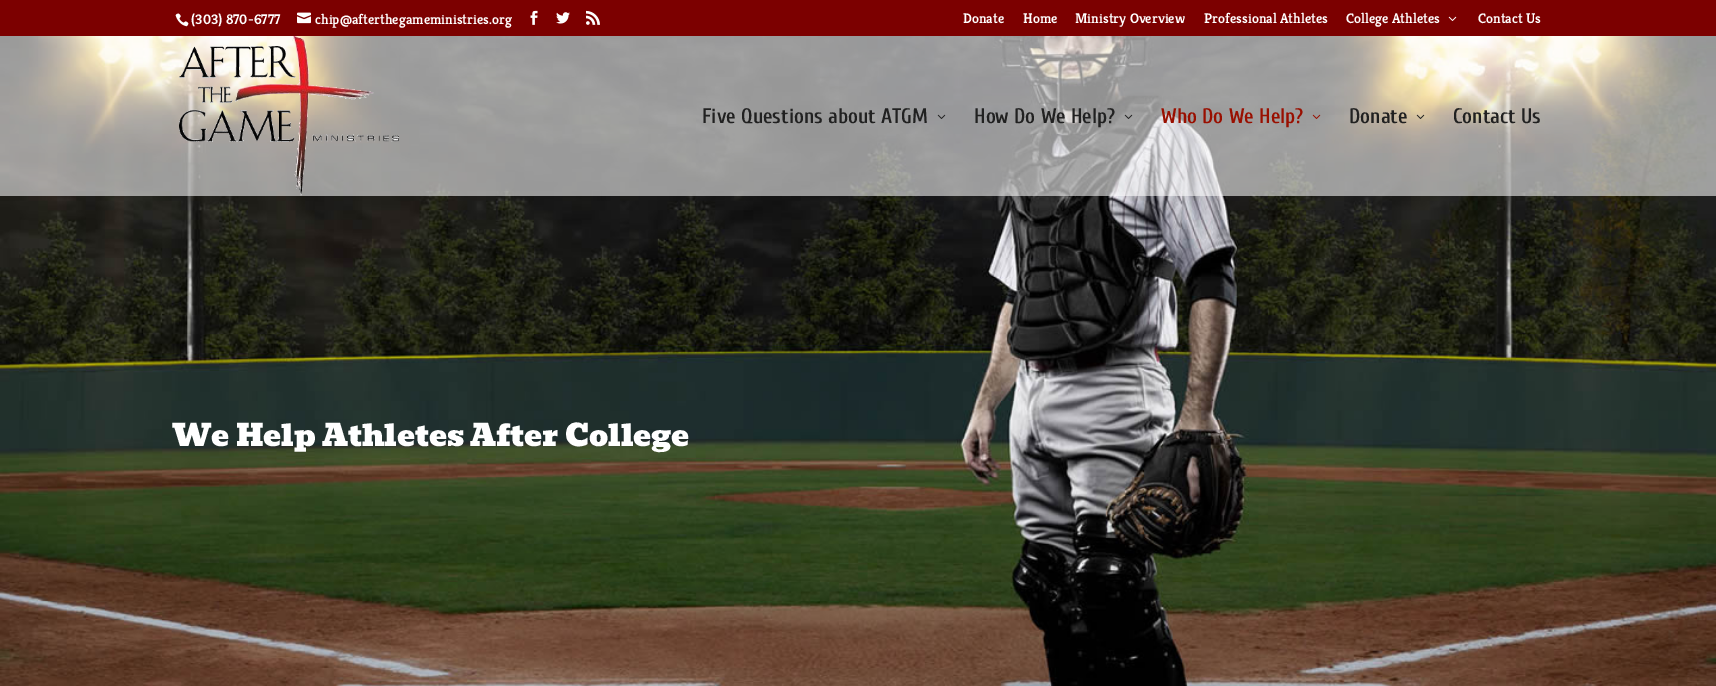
%!PS-Adobe-3.0
%%BoundingBox: 0 0 1716 686
%%LanguageLevel: 3
%%Pages: 1
%%EndComments
%%BeginProlog
/setink { 3 { 255 div 3 1 roll } repeat setrgbcolor } def
/usefont { [ exch dup neg 0 0 3 -1 roll 0 0 ] selectfont } def
/drawtext { setink usefont moveto show } def
/fillbox { setink rectfill } def
/setalpha { dup .setfillconstantalpha .setstrokeconstantalpha } def
/drawimage { 5 dict begin { /h /w /y /x /name } { exch def } forall
  gsave x y translate w h scale
  w h 8 [w 0 0 h 0 0] name (r) file false 3 colorimage grestore end } def
%%EndProlog
%%BeginSetup
<< /PageSize [1716 686] /PageUsesTransparency true >> setpagedevice
%%EndSetup
%%Page: 1 1
0 .pushpdf14devicefilter
0 686 translate 1 -1 scale
4 setmiterlimit
0 0 1716 686 255 255 255 fillbox
0 0 1716 36 124 0 0 fillbox
(assets/img1.rgb) 175 13 14 14 drawimage
(\(303\) 870-6777) 191 24 /Kreon-SemiBold 14 255 255 255 drawtext
(assets/img2.rgb) 297 12 14 12 drawimage
(chip@afterthegameministries.org) 315 24 /Kreon-SemiBold 14 255 255 255 drawtext
(assets/img3.rgb) 530 10 8 15 drawimage
(assets/img4.rgb) 556 12 14 12 drawimage
(assets/img5.rgb) 586 10 14 15 drawimage
(Donate) 963 23 /Kreon-SemiBold 14 255 255 255 drawtext
(Home) 1023 23 /Kreon-SemiBold 14 255 255 255 drawtext
(Ministry Overview) 1075 23 /Kreon-SemiBold 14 255 255 255 drawtext
(Professional Athletes) 1204 23 /Kreon-SemiBold 14 255 255 255 drawtext
(College Athletes) 1346 23 /Kreon-SemiBold 14 255 255 255 drawtext
(assets/img6.rgb) 1448 16 9 5 drawimage
(Contact Us) 1478 23 /Kreon-SemiBold 14 255 255 255 drawtext
(assets/img12.rgb) 0 36 1716 650 drawimage
0.57 setalpha
0 36 1716 160 255 255 255 fillbox
1 setalpha
(assets/img7.rgb) 179 36 220 160 drawimage
(Five Questions about ATGM) 702 123 /Cuprum-SemiBold 21 33 33 33 drawtext
(assets/img8.rgb) 937 114 9 5 drawimage
(How Do We Help?) 974 123 /Cuprum-SemiBold 21 33 33 33 drawtext
(assets/img9.rgb) 1124 114 9 5 drawimage
(Who Do We Help?) 1161 123 /Cuprum-SemiBold 21 153 15 0 drawtext
(assets/img10.rgb) 1312 114 9 5 drawimage
(Donate) 1349 123 /Cuprum-SemiBold 21 33 33 33 drawtext
(assets/img11.rgb) 1416 114 9 5 drawimage
(Contact Us) 1453 123 /Cuprum-SemiBold 21 33 33 33 drawtext
(We Help Athletes After College) 172 446 /Bevan-Regular 30 255 255 255 drawtext
.poppdf14devicefilter showpage
%%EOF
